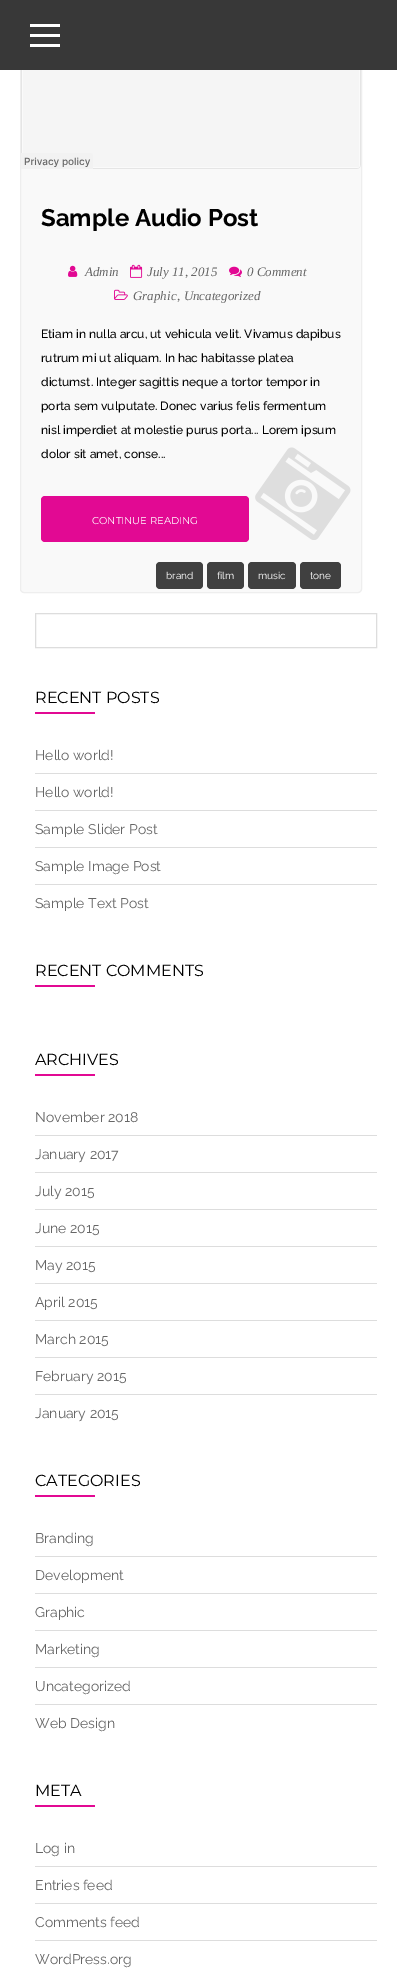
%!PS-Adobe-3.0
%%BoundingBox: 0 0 397 1977
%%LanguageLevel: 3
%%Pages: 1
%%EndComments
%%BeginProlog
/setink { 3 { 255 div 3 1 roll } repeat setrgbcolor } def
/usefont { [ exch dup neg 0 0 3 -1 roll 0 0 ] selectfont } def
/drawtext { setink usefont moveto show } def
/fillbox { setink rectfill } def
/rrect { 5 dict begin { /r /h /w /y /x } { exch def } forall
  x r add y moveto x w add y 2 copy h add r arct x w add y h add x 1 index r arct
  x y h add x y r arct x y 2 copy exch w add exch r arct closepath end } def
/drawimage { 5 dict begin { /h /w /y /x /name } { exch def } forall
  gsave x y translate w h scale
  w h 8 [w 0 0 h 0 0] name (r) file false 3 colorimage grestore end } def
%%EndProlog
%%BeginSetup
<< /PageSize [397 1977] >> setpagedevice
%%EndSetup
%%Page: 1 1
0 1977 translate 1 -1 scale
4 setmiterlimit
0 0 397 1977 255 255 255 fillbox
249 249 249 setink
20.5 -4.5 341 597 3.5 rrect gsave fill grestore
238 238 238 setink
stroke
0 0 397 70 56 56 56 fillbox
30 24 30 3 255 255 255 fillbox
30 34 30 3 255 255 255 fillbox
30 44 30 3 255 255 255 fillbox
(assets/img1.rgb) 21 70 340 99 drawimage
(Sample Audio Post) 41 226 /Raleway-Bold 24 0 0 0 drawtext
(assets/img2.rgb) 68 265 10 12 drawimage
(Admin) 85 276 /LiberationSerif-Italic 13 102 102 102 drawtext
(assets/img3.rgb) 130 264 13 14 drawimage
(July 11, 2015) 147 276 /LiberationSerif-Italic 13 102 102 102 drawtext
(assets/img4.rgb) 229 266 13 11 drawimage
(0 Comment) 247 276 /LiberationSerif-Italic 13 102 102 102 drawtext
(assets/img5.rgb) 114 289 14 11 drawimage
(Graphic) 133 300 /LiberationSerif-Italic 13 102 102 102 drawtext
(, Uncategorized) 177 300 /LiberationSerif-Italic 13 102 102 102 drawtext
(Etiam in nulla arcu, ut vehicula velit. Vivamus dapibus) 41 338 /Raleway-Medium 12 0 0 0 drawtext
(rutrum mi ut aliquam. In hac habitasse platea) 41 362 /Raleway-Medium 12 0 0 0 drawtext
(dictumst. Integer sagittis neque a tortor tempor in) 41 386 /Raleway-Medium 12 0 0 0 drawtext
(porta sem vulputate. Donec varius felis fermentum) 41 410 /Raleway-Medium 12 0 0 0 drawtext
(nisl imperdiet at molestie purus porta... Lorem ipsum) 41 434 /Raleway-Medium 12 0 0 0 drawtext
(dolor sit amet, conse...) 41 458 /Raleway-Medium 12 0 0 0 drawtext
226 9 147 setink
41 496 208 46 4 rrect fill
(CONTINUE READING) 92 524 /Montserrat-Regular 10 255 255 255 drawtext
(assets/img6.rgb) 255 447 96 93 drawimage
64 64 64 setink
156 562 47 27 4 rrect fill
(brand) 166 579 /Raleway-Regular 10 255 255 255 drawtext
64 64 64 setink
207 562 37 27 4 rrect fill
(film) 217 579 /Raleway-Regular 10 255 255 255 drawtext
64 64 64 setink
248 562 48 27 4 rrect fill
(music) 258 579 /Raleway-Regular 10 255 255 255 drawtext
64 64 64 setink
300 562 41 27 4 rrect fill
(tone) 310 579 /Raleway-Regular 10 255 255 255 drawtext
221 221 221 setink
35.5 613.5 341 34 rectstroke
(RECENT POSTS) 35 703 /Montserrat-Regular 16 0 0 0 drawtext
35 712 60 2 226 9 147 fillbox
35 773 342 1 221 221 221 fillbox
(Hello world!) 35 760 /Raleway-Regular 14 102 102 102 drawtext
35 810 342 1 221 221 221 fillbox
(Hello world!) 35 797 /Raleway-Regular 14 102 102 102 drawtext
35 847 342 1 221 221 221 fillbox
(Sample Slider Post) 35 834 /Raleway-Regular 14 102 102 102 drawtext
35 884 342 1 221 221 221 fillbox
(Sample Image Post) 35 871 /Raleway-Regular 14 102 102 102 drawtext
(Sample Text Post) 35 908 /Raleway-Regular 14 102 102 102 drawtext
(RECENT COMMENTS) 35 976 /Montserrat-Regular 16 0 0 0 drawtext
35 985 60 2 226 9 147 fillbox
(ARCHIVES) 35 1065 /Montserrat-Regular 16 0 0 0 drawtext
35 1074 60 2 226 9 147 fillbox
35 1135 342 1 221 221 221 fillbox
(November 2018) 35 1122 /Raleway-Regular 14 102 102 102 drawtext
35 1172 342 1 221 221 221 fillbox
(January 2017) 35 1159 /Raleway-Regular 14 102 102 102 drawtext
35 1209 342 1 221 221 221 fillbox
(July 2015) 35 1196 /Raleway-Regular 14 102 102 102 drawtext
35 1246 342 1 221 221 221 fillbox
(June 2015) 35 1233 /Raleway-Regular 14 102 102 102 drawtext
35 1283 342 1 221 221 221 fillbox
(May 2015) 35 1270 /Raleway-Regular 14 102 102 102 drawtext
35 1320 342 1 221 221 221 fillbox
(April 2015) 35 1307 /Raleway-Regular 14 102 102 102 drawtext
35 1357 342 1 221 221 221 fillbox
(March 2015) 35 1344 /Raleway-Regular 14 102 102 102 drawtext
35 1394 342 1 221 221 221 fillbox
(February 2015) 35 1381 /Raleway-Regular 14 102 102 102 drawtext
(January 2015) 35 1418 /Raleway-Regular 14 102 102 102 drawtext
(CATEGORIES) 35 1486 /Montserrat-Regular 16 0 0 0 drawtext
35 1495 60 2 226 9 147 fillbox
35 1556 342 1 221 221 221 fillbox
(Branding) 35 1543 /Raleway-Regular 14 102 102 102 drawtext
35 1593 342 1 221 221 221 fillbox
(Development) 35 1580 /Raleway-Regular 14 102 102 102 drawtext
35 1630 342 1 221 221 221 fillbox
(Graphic) 35 1617 /Raleway-Regular 14 102 102 102 drawtext
35 1667 342 1 221 221 221 fillbox
(Marketing) 35 1654 /Raleway-Regular 14 102 102 102 drawtext
35 1704 342 1 221 221 221 fillbox
(Uncategorized) 35 1691 /Raleway-Regular 14 102 102 102 drawtext
(Web Design) 35 1728 /Raleway-Regular 14 102 102 102 drawtext
(META) 35 1796 /Montserrat-Regular 16 0 0 0 drawtext
35 1805 60 2 226 9 147 fillbox
35 1866 342 1 221 221 221 fillbox
(Log in) 35 1853 /Raleway-Regular 14 102 102 102 drawtext
35 1903 342 1 221 221 221 fillbox
(Entries feed) 35 1890 /Raleway-Regular 14 102 102 102 drawtext
35 1940 342 1 221 221 221 fillbox
(Comments feed) 35 1927 /Raleway-Regular 14 102 102 102 drawtext
(WordPress.org) 35 1964 /Raleway-Regular 14 102 102 102 drawtext
showpage
%%EOF
